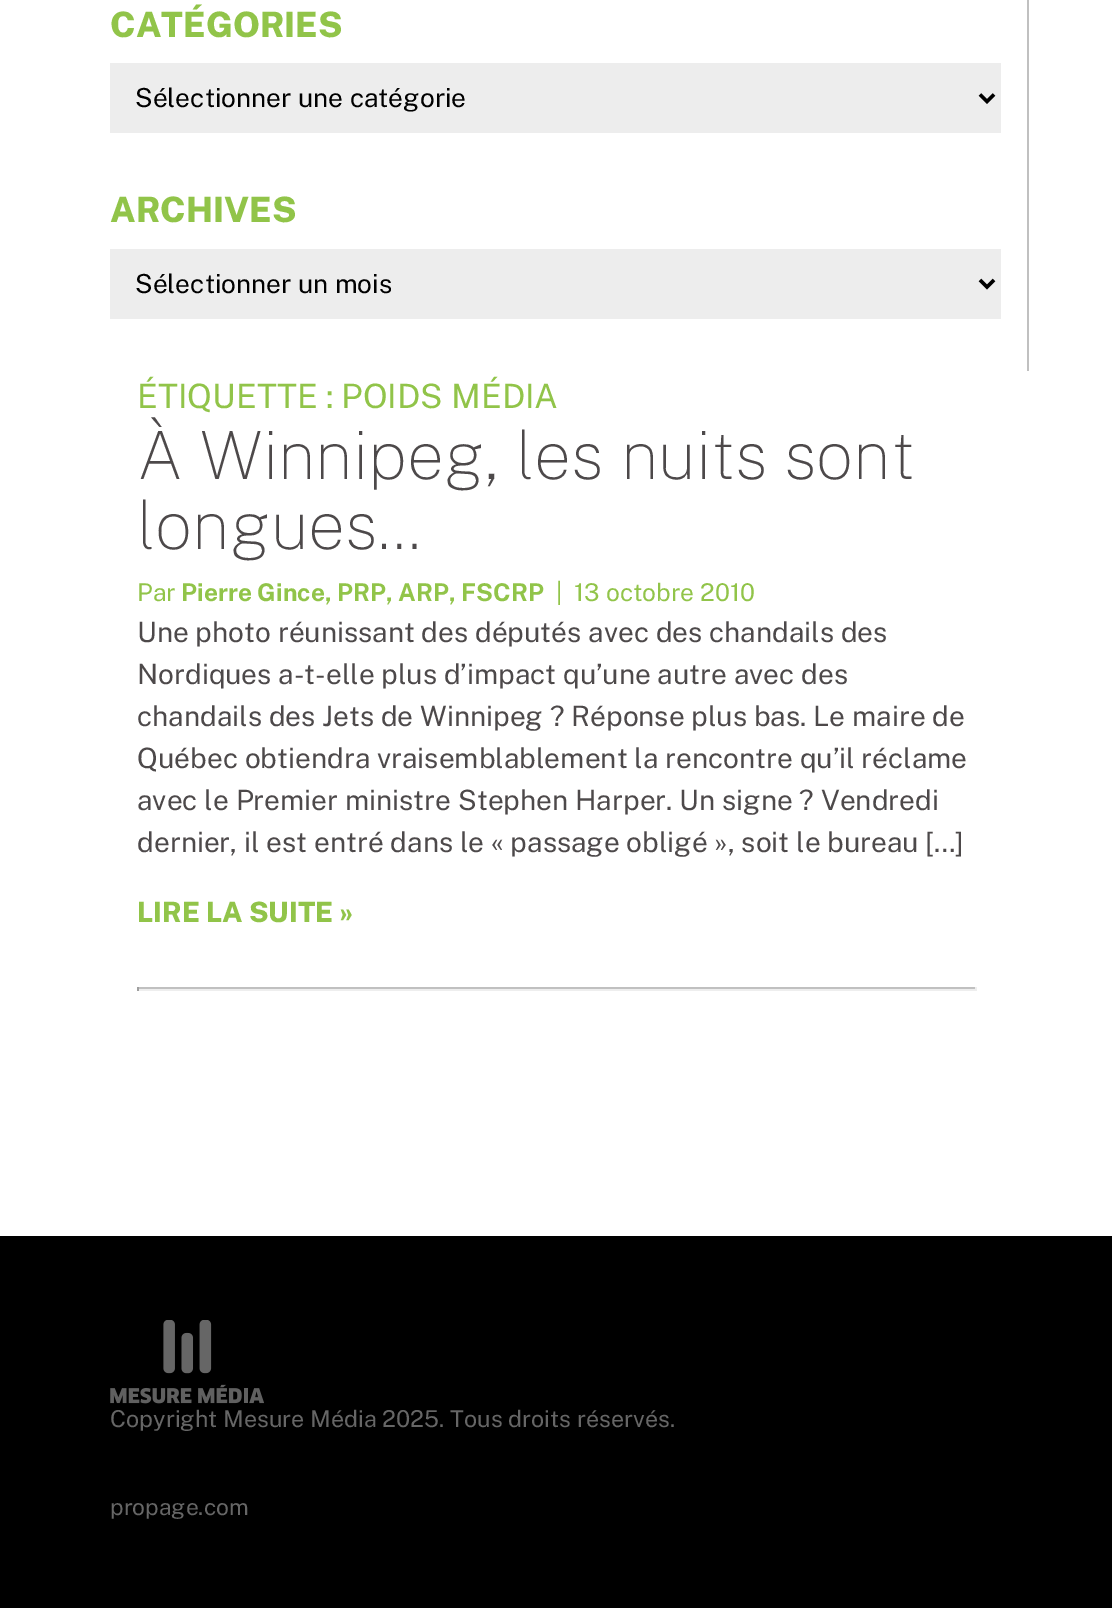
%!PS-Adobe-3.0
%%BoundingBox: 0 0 1112 1608
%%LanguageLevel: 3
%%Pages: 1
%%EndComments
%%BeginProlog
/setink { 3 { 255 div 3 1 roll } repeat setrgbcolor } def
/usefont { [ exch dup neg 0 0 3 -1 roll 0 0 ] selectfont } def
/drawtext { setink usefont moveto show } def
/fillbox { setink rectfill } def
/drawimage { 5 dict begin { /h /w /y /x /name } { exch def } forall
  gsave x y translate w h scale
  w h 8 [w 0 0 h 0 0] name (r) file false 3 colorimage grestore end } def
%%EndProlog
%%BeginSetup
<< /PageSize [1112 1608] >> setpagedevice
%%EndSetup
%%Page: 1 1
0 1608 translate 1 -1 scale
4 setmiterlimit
0 0 1112 1608 255 255 255 fillbox
1027 0 2 371 192 192 192 fillbox
(CATÉGORIES) 110 37 /PublicSans-ExtraBold 35 145 196 73 drawtext
110 63 891 70 237 237 237 fillbox
0 0 0 setink
3.5 setlinewidth
980 94.5 moveto 987 101.5 lineto 994 94.5 lineto stroke
(Sélectionner une catégorie) 135 107 /PublicSans-Regular 26.25 0 0 0 drawtext
(ARCHIVES) 110 222 /PublicSans-ExtraBold 35 145 196 73 drawtext
110 249 891 70 237 237 237 fillbox
0 0 0 setink
980 280 moveto 987 287 lineto 994 280 lineto stroke
(Sélectionner un mois) 135 293 /PublicSans-Regular 26.25 0 0 0 drawtext
(ÉTIQUETTE : POIDS MÉDIA) 137 408 /PublicSans-Regular 33.6 145 196 73 drawtext
(À Winnipeg, les nuits sont) 137 479 /PublicSans-Thin 66.5 77 73 74 drawtext
(longues…) 137 549 /PublicSans-Thin 66.5 77 73 74 drawtext
(Par) 137 601 /PublicSans-Regular 24.5 145 196 73 drawtext
(Pierre Gince, PRP, ARP, FSCRP) 181 601 /PublicSans-Bold 24.5 145 196 73 drawtext
(|  13 octobre 2010) 556 601 /PublicSans-Regular 24.5 145 196 73 drawtext
(Une photo réunissant des députés avec des chandails des) 137 642 /PublicSans-Regular 28 77 73 74 drawtext
(Nordiques a-t-elle plus d’impact qu’une autre avec des) 137 684 /PublicSans-Regular 28 77 73 74 drawtext
(chandails des Jets de Winnipeg ? Réponse plus bas. Le maire de) 137 726 /PublicSans-Regular 28 77 73 74 drawtext
(Québec obtiendra vraisemblablement la rencontre qu’il réclame) 137 768 /PublicSans-Regular 28 77 73 74 drawtext
(avec le Premier ministre Stephen Harper. Un signe ? Vendredi) 137 810 /PublicSans-Regular 28 77 73 74 drawtext
(dernier, il est entré dans le « passage obligé », soit le bureau […]) 137 852 /PublicSans-Regular 28 77 73 74 drawtext
(LIRE LA SUITE ») 137 922 /PublicSans-ExtraBold 28 145 196 73 drawtext
137 987 840 2 192 192 192 fillbox
975 987 2 4 238 238 238 fillbox
137 989 840 2 238 238 238 fillbox
137 987 2 4 159 159 159 fillbox
0 1236 1112 372 0 0 0 fillbox
(assets/img1.rgb) 110 1320 154 84 drawimage
(Copyright Mesure Média 2025. Tous droits réservés.) 110 1427 /PublicSans-Regular 23.3 102 102 102 drawtext
(propage.com) 110 1515 /PublicSans-Regular 22.75 102 102 102 drawtext
showpage
%%EOF
